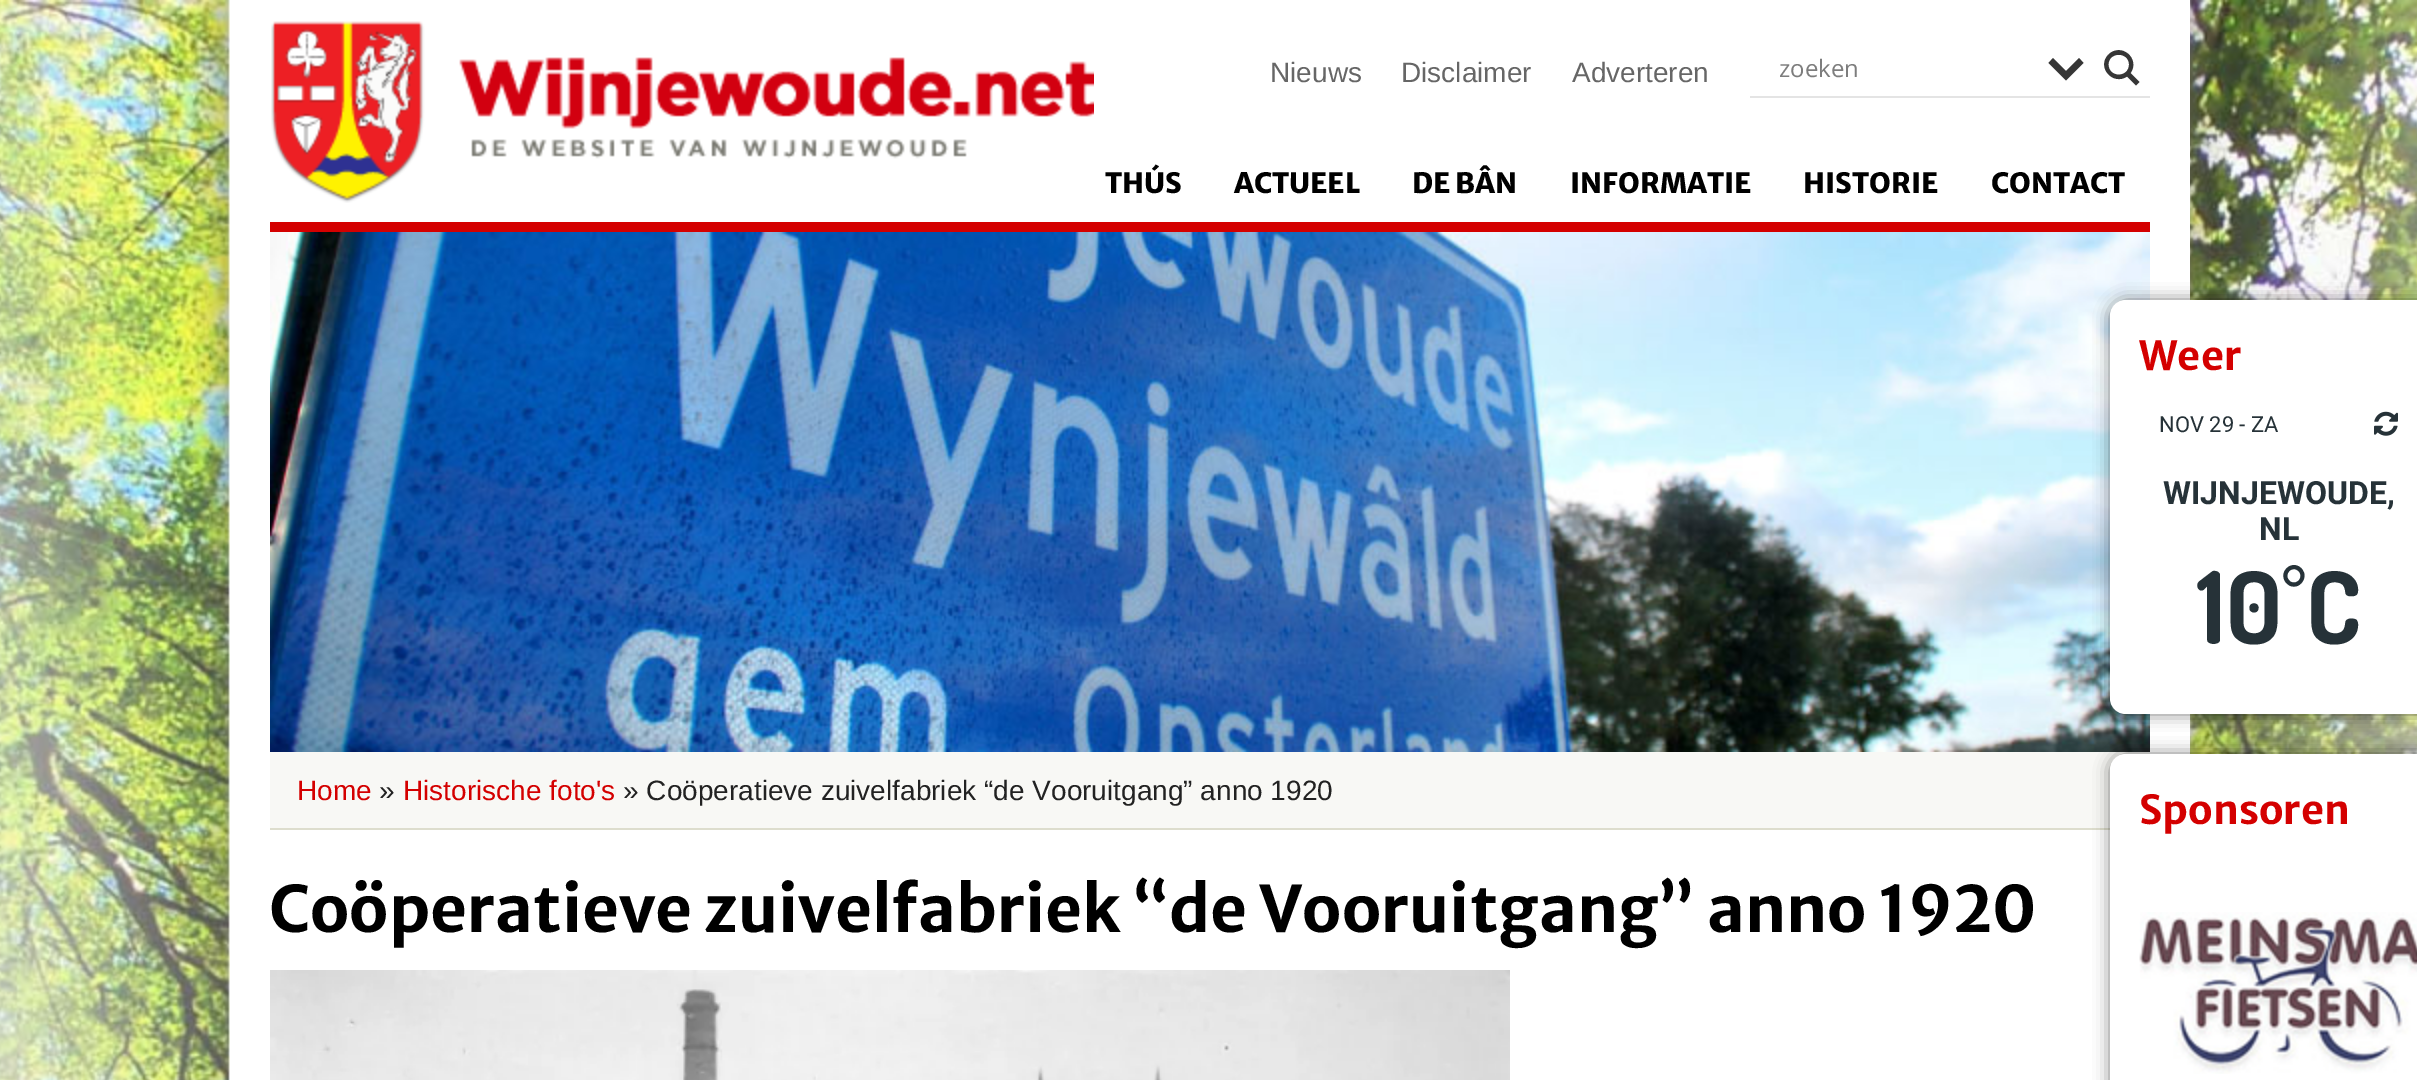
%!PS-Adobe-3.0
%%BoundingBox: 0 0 2417 1080
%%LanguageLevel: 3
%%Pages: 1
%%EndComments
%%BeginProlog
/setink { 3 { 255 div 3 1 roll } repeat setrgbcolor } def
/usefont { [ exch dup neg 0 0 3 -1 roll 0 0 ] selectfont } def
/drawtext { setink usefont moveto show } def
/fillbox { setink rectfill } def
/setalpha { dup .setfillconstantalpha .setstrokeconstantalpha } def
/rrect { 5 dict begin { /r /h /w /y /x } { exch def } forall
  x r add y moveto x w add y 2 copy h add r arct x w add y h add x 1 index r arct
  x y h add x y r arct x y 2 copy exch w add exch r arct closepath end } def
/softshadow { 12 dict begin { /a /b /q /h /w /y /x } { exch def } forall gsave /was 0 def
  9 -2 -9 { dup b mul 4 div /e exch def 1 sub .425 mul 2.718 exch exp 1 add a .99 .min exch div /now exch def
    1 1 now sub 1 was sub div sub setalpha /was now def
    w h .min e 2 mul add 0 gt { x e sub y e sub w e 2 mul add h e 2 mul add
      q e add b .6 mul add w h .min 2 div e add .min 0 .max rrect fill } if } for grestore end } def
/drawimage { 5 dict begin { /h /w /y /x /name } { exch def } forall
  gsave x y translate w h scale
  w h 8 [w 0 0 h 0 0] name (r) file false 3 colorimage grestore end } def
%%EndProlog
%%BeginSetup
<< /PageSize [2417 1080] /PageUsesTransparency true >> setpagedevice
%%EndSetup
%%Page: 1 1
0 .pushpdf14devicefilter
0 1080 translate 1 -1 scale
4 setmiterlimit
0 0 2417 1080 255 255 255 fillbox
(assets/img1.rgb) 0 0 2417 1080 drawimage
230 0 1960 1080 255 255 255 fillbox
(assets/img2.rgb) 271 21 823 182 drawimage
(Nieuws) 1270 82 /LiberationSans-Regular 28 102 102 102 drawtext
(Disclaimer) 1401 82 /LiberationSans-Regular 28 102 102 102 drawtext
(Adverteren) 1572 82 /LiberationSans-Regular 28 102 102 102 drawtext
1750 96 400 2 228 228 228 fillbox
(zoeken) 1779 77 /OpenSans-Regular 24 125 125 125 drawtext
54 54 54 setink
2079 58 moveto 2083.5 63 lineto 2066 80.5 lineto 2048.5 63 lineto 2053 58 lineto 2066 71 lineto closepath fill
2139.5 82 moveto 2130.5 73 lineto 2140.5 59 2121.5 42 2108.5 54.5 curveto 2096 67 2113 86 2127 76.5 curveto 2136 85.5 lineto closepath 2108.5 64.5 moveto 2108.5 51.5 2129 51.5 2129 64.5 curveto 2129 78 2108.5 78 2108.5 64.5 curveto closepath fill
270 222 1880 10 212 0 0 fillbox
(THÚS) 1105 193 /MerriweatherSans-ExtraBold 28 0 0 0 drawtext
(ACTUEEL) 1234 193 /MerriweatherSans-ExtraBold 28 0 0 0 drawtext
(DE BÂN) 1412 193 /MerriweatherSans-ExtraBold 28 0 0 0 drawtext
(INFORMATIE) 1570 193 /MerriweatherSans-ExtraBold 28 0 0 0 drawtext
(HISTORIE) 1803 193 /MerriweatherSans-ExtraBold 28 0 0 0 drawtext
(CONTACT) 1991 193 /MerriweatherSans-ExtraBold 28 0 0 0 drawtext
(assets/img3.rgb) 270 232 1880 520 drawimage
270 752 1880 76 248 248 245 fillbox
270 828 1840 2 221 221 205 fillbox
(Home) 297 800 /LiberationSans-Regular 28 212 0 0 drawtext
(») 379 800 /LiberationSans-Regular 28 34 34 34 drawtext
(Historische foto's) 403 800 /LiberationSans-Regular 28 212 0 0 drawtext
(» Coöperatieve zuivelfabriek “de Vooruitgang” anno 1920) 623 800 /LiberationSans-Regular 28 34 34 34 drawtext
(Coöperatieve zuivelfabriek “de Vooruitgang” anno 1920) 269 932 /MerriweatherSans-Bold 64 0 0 0 drawtext
(assets/img4.rgb) 270 970 1240 110 drawimage
2110 300 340 414 16 8 0.5 softshadow
255 255 255 setink
2126 300 moveto 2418 300 lineto 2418 714 lineto 2126 714 lineto 2117 714 2110 707 2110 698 curveto 2110 316 lineto 2110 307 2117 300 2126 300 curveto closepath fill
(Weer) 2139 370 /MerriweatherSans-Bold 40 212 0 0 drawtext
(NOV 29 - ZA) 2159 432 /Roboto-Regular 22 38 50 56 drawtext
(assets/img5.rgb) 2374 411 24 25 drawimage
(WIJNJEWOUDE,) 2163 504 /Roboto-Bold 32 38 50 56 drawtext
(NL) 2259 540 /Roboto-Bold 32 38 50 56 drawtext
(10) 2197 644 /Dosis-Bold 100 38 50 56 drawtext
(°) 2282 611 /Dosis-Bold 60 38 50 56 drawtext
(C) 2306 644 /Dosis-Bold 100 38 50 56 drawtext
0 0 0 setink
2110 754 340 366 16 8 0.5 softshadow
255 255 255 setink
2126 754 moveto 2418 754 lineto 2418 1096 lineto 2126 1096 lineto 2117 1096 2110 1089 2110 1080 curveto 2110 770 lineto 2110 761 2117 754 2126 754 curveto closepath fill
(Sponsoren) 2139 824 /MerriweatherSans-Bold 40 212 0 0 drawtext
(assets/img6.rgb) 2139 912 278 162 drawimage
.poppdf14devicefilter showpage
%%EOF
